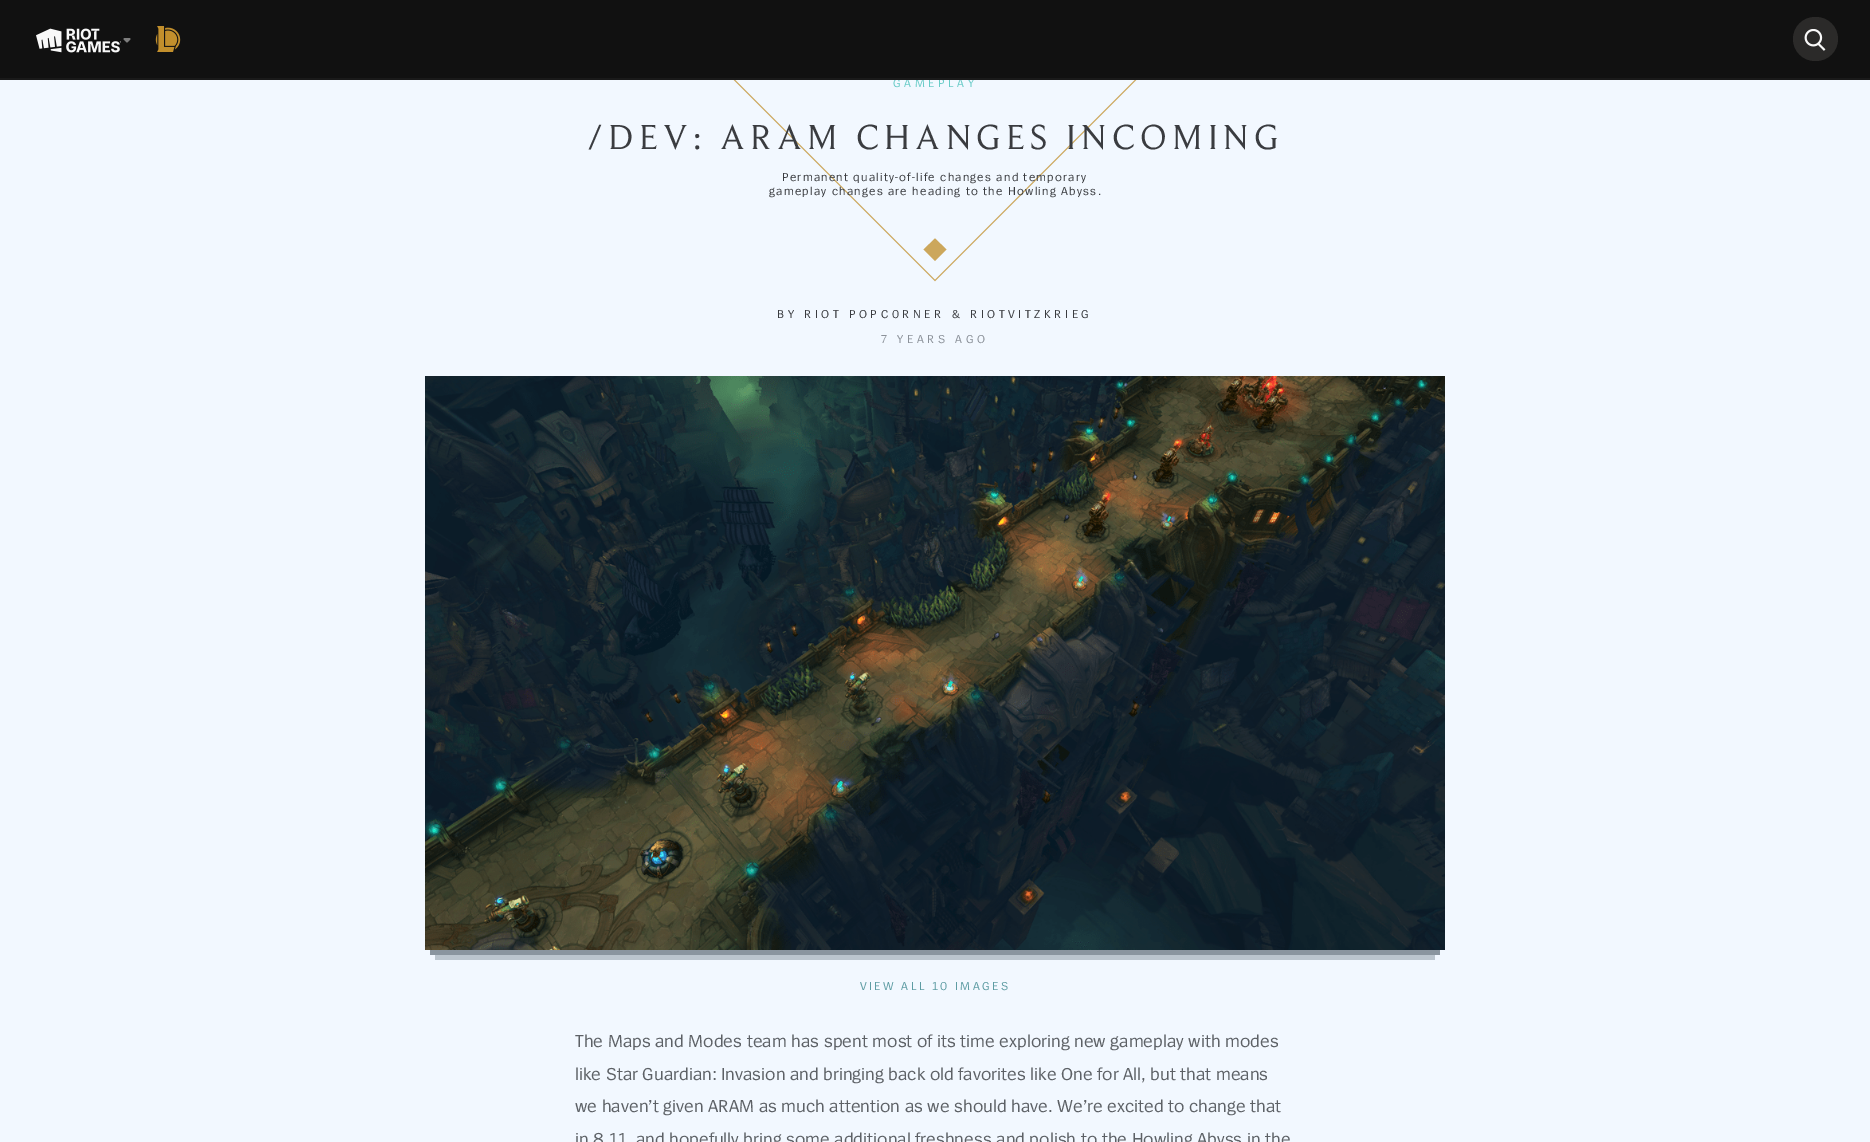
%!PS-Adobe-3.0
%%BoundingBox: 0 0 1870 1142
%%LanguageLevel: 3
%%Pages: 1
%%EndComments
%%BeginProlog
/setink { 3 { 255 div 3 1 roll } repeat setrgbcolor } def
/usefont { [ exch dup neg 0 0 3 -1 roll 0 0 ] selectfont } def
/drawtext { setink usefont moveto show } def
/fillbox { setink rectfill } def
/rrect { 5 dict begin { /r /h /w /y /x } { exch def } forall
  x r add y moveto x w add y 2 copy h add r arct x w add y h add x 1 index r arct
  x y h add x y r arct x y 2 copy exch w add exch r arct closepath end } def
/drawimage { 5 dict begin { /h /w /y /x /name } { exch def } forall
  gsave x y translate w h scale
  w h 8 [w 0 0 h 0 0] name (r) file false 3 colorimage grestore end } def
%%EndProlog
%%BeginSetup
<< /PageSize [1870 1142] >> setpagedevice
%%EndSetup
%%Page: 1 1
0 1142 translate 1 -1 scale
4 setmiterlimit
0 0 1870 1142 242 248 255 fillbox
204 167 92 setink
935 -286.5 moveto 1218.5 -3 lineto 935 280.5 lineto 651.5 -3 lineto closepath stroke
0 0 1870 78 17 17 17 fillbox
/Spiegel-Regular 12 usefont
105 204 200 setink
893 87 moveto 3.6 0 (GAMEPLAY) ashow
0 78 1870 2 26 26 26 fillbox
(assets/img1.rgb) 36 28 85 25 drawimage
(assets/img2.rgb) 123 38 8 5 drawimage
(assets/img3.rgb) 155 26 26 26 drawimage
43 42 41 setink
1793 17 45 44 22 rrect fill
(assets/img4.rgb) 1804 29 22 22 drawimage
204 167 92 setink
935 238.5 moveto 946.5 249.5 lineto 935 261 lineto 923.5 249.5 lineto closepath fill
/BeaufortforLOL-Regular 36 usefont
58 60 64 setink
587 149 moveto 5.4 0 (/DEV: ARAM CHANGES INCOMING) ashow
/Spiegel-Regular 12 usefont
782 181 moveto 1.2 0 (Permanent quality-of-life changes and temporary) ashow
769 195 moveto 1.2 0 (gameplay changes are heading to the Howling Abyss.) ashow
777 318 moveto 3.6 0 (BY RIOT POPC0RNER & RIOTVITZKRIEG) ashow
139 145 153 setink
881 343 moveto 3.6 0 (7 YEARS AGO) ashow
(assets/img5.rgb) 425 376 1020 574 drawimage
430 950 1010 5 138 149 159 fillbox
435 955 1000 5 187 197 206 fillbox
93 156 163 setink
860 990 moveto 2.4 0 (VIEW ALL 10 IMAGES) ashow
(The Maps and Modes team has spent most of its time exploring new gameplay with modes) 575 1047 /Spiegel-Regular 18 93 97 102 drawtext
(like Star Guardian: Invasion and bringing back old favorites like One for All, but that means) 575 1080 /Spiegel-Regular 18 93 97 102 drawtext
(we haven’t given ARAM as much attention as we should have. We’re excited to change that) 575 1112 /Spiegel-Regular 18 93 97 102 drawtext
(in 8.11, and hopefully bring some additional freshness and polish to the Howling Abyss in the) 575 1145 /Spiegel-Regular 18 93 97 102 drawtext
showpage
%%EOF
